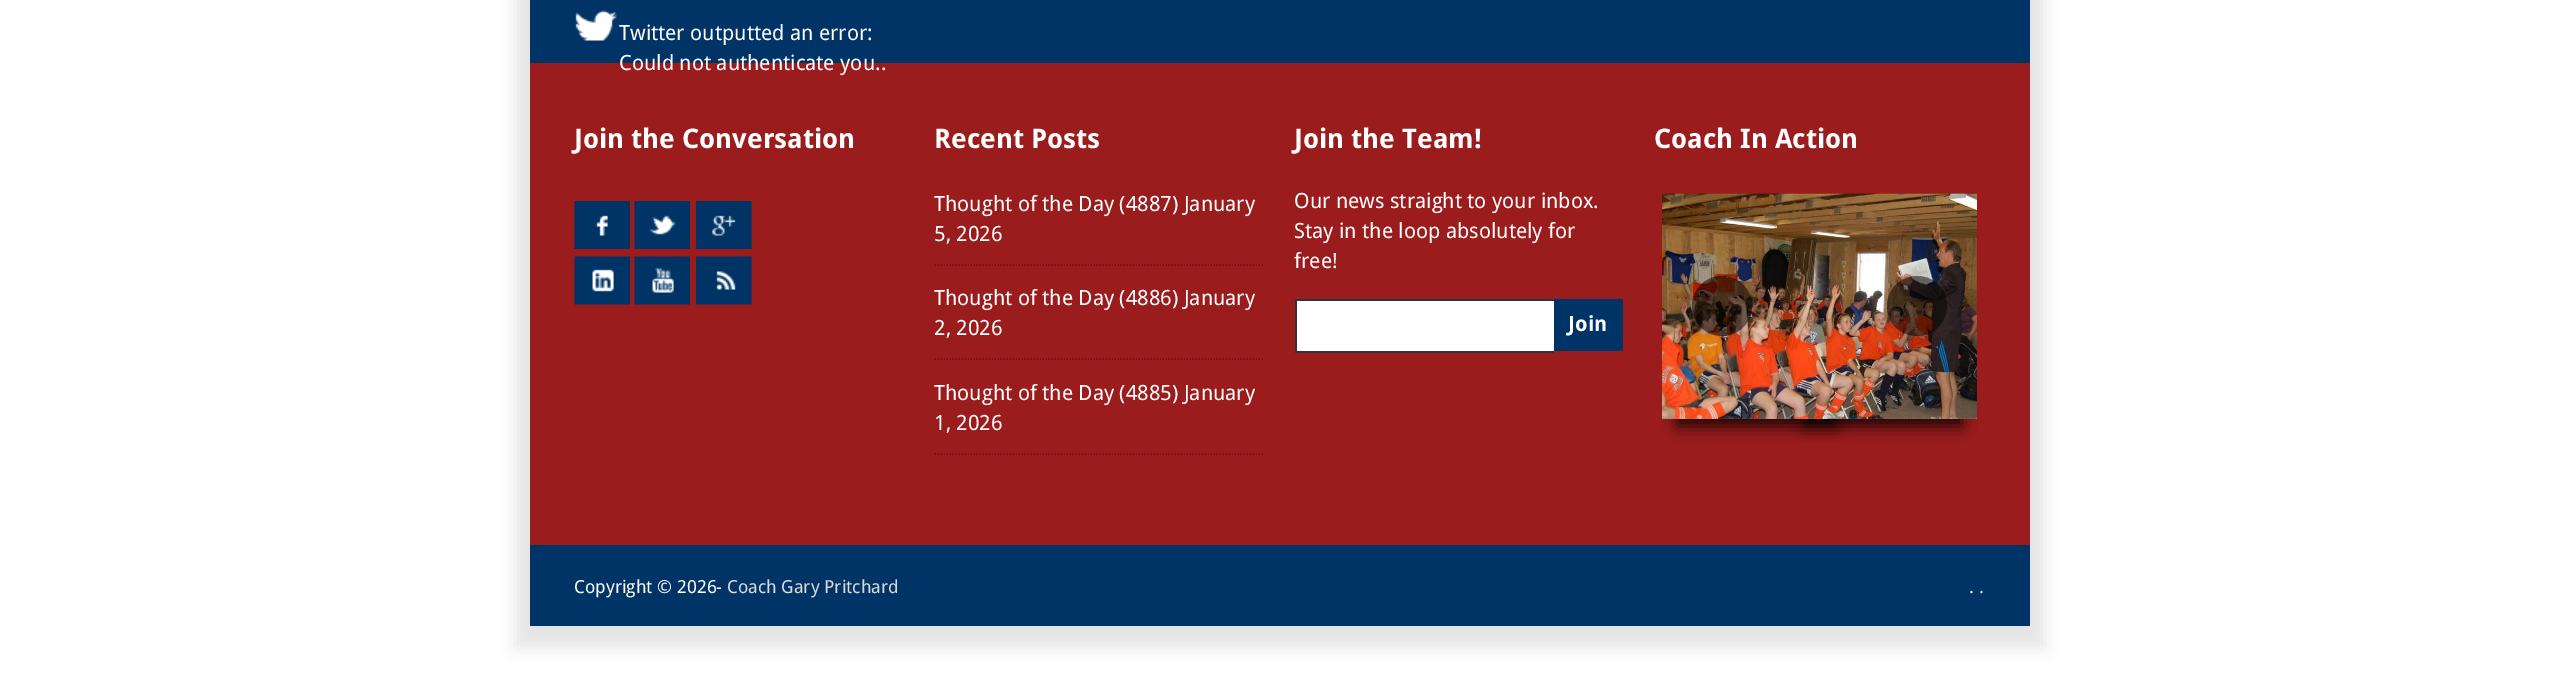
%!PS-Adobe-3.0
%%BoundingBox: 0 0 2557 685
%%LanguageLevel: 3
%%Pages: 1
%%EndComments
%%BeginProlog
/setink { 3 { 255 div 3 1 roll } repeat setrgbcolor } def
/usefont { [ exch dup neg 0 0 3 -1 roll 0 0 ] selectfont } def
/drawtext { setink usefont moveto show } def
/fillbox { setink rectfill } def
/setalpha { dup .setfillconstantalpha .setstrokeconstantalpha } def
/disc { newpath 0 360 arc closepath } def
/rrect { 5 dict begin { /r /h /w /y /x } { exch def } forall
  x r add y moveto x w add y 2 copy h add r arct x w add y h add x 1 index r arct
  x y h add x y r arct x y 2 copy exch w add exch r arct closepath end } def
/softshadow { 12 dict begin { /a /b /q /h /w /y /x } { exch def } forall gsave /was 0 def
  9 -2 -9 { dup b mul 4 div /e exch def 1 sub .425 mul 2.718 exch exp 1 add a .99 .min exch div /now exch def
    1 1 now sub 1 was sub div sub setalpha /was now def
    w h .min e 2 mul add 0 gt { x e sub y e sub w e 2 mul add h e 2 mul add
      q e add b .6 mul add w h .min 2 div e add .min 0 .max rrect fill } if } for grestore end } def
/drawimage { 5 dict begin { /h /w /y /x /name } { exch def } forall
  gsave x y translate w h scale
  w h 8 [w 0 0 h 0 0] name (r) file false 3 colorimage grestore end } def
%%EndProlog
%%BeginSetup
<< /PageSize [2557 685] /PageUsesTransparency true >> setpagedevice
%%EndSetup
%%Page: 1 1
0 .pushpdf14devicefilter
0 685 translate 1 -1 scale
4 setmiterlimit
0 0 2557 685 255 255 255 fillbox
0 0 0 setink
515 -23 1530 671 0 7.5 0.1 softshadow
530 0 1500 63 0 51 102 fillbox
(assets/img1.rgb) 574 10 43 31 drawimage
(Twitter outputted an error:) 619 40 /DroidSans-Regular 21 255 255 255 drawtext
530 63 1500 482 154 28 28 fillbox
(Could not authenticate you..) 619 70 /DroidSans-Regular 21 255 255 255 drawtext
(Join the Conversation) 574 148 /DroidSans-Bold 27 255 255 255 drawtext
(assets/img2.rgb) 574 201 56 48 drawimage
(assets/img3.rgb) 634 201 56 48 drawimage
(assets/img4.rgb) 696 201 56 48 drawimage
(assets/img5.rgb) 574 256 56 49 drawimage
(assets/img6.rgb) 634 256 56 49 drawimage
(assets/img7.rgb) 696 256 56 49 drawimage
(Recent Posts) 934 148 /DroidSans-Bold 27 255 255 255 drawtext
128 5 23 setink
1.5 setlinewidth
[1.5 1.5] 0 setdash
934.5 265 moveto 1264.5 265 lineto stroke
(Thought of the Day \(4887\) January) 934 211 /DroidSans-Regular 21 255 255 255 drawtext
(5, 2026) 934 241 /DroidSans-Regular 21 255 255 255 drawtext
128 5 23 setink
934.5 359 moveto 1264.5 359 lineto stroke
(Thought of the Day \(4886\) January) 934 305 /DroidSans-Regular 21 255 255 255 drawtext
(2, 2026) 934 335 /DroidSans-Regular 21 255 255 255 drawtext
128 5 23 setink
934.5 454 moveto 1264.5 454 lineto stroke
(Thought of the Day \(4885\) January) 934 400 /DroidSans-Regular 21 255 255 255 drawtext
(1, 2026) 934 430 /DroidSans-Regular 21 255 255 255 drawtext
(Join the Team!) 1294 148 /DroidSans-Bold 27 255 255 255 drawtext
(Our news straight to your inbox.) 1294 208 /DroidSans-Regular 21 255 255 255 drawtext
(Stay in the loop absolutely for) 1294 238 /DroidSans-Regular 21 255 255 255 drawtext
(free!) 1294 268 /DroidSans-Regular 21 255 255 255 drawtext
1297 301 257 50 255 255 255 fillbox
1295 299 259 2 48 52 53 fillbox
1295 351 259 2 48 52 53 fillbox
1295 299 2 54 48 52 53 fillbox
1554 299 69 52 0 51 102 fillbox
(Join) 1568 331 /DroidSans-Bold 21 255 255 255 drawtext
(Coach In Action) 1654 148 /DroidSans-Bold 27 255 255 255 drawtext
0 0 0 setink
1677 407 158 19 0 7.5 0.8 softshadow
1805 407 157 19 0 7.5 0.8 softshadow
gsave
1662 194 315 225 rectclip
128 5 23 setink
1662 419 moveto 1977 419 lineto stroke
grestore
(assets/img8.rgb) 1662 193 315 226 drawimage
0.5 setalpha
1722 306 30 disc fill
1917 306 30 disc fill
1 setalpha
530 545 1500 81 0 51 102 fillbox
(Copyright © 2026-) 574 593 /DroidSans-Regular 18 255 255 255 drawtext
(Coach Gary Pritchard) 727 593 /DroidSans-Regular 18 219 219 219 drawtext
(.) 1969 593 /DroidSans-Regular 18 255 255 255 drawtext
(.) 1979 593 /DroidSans-Regular 18 219 219 219 drawtext
.poppdf14devicefilter showpage
%%EOF
